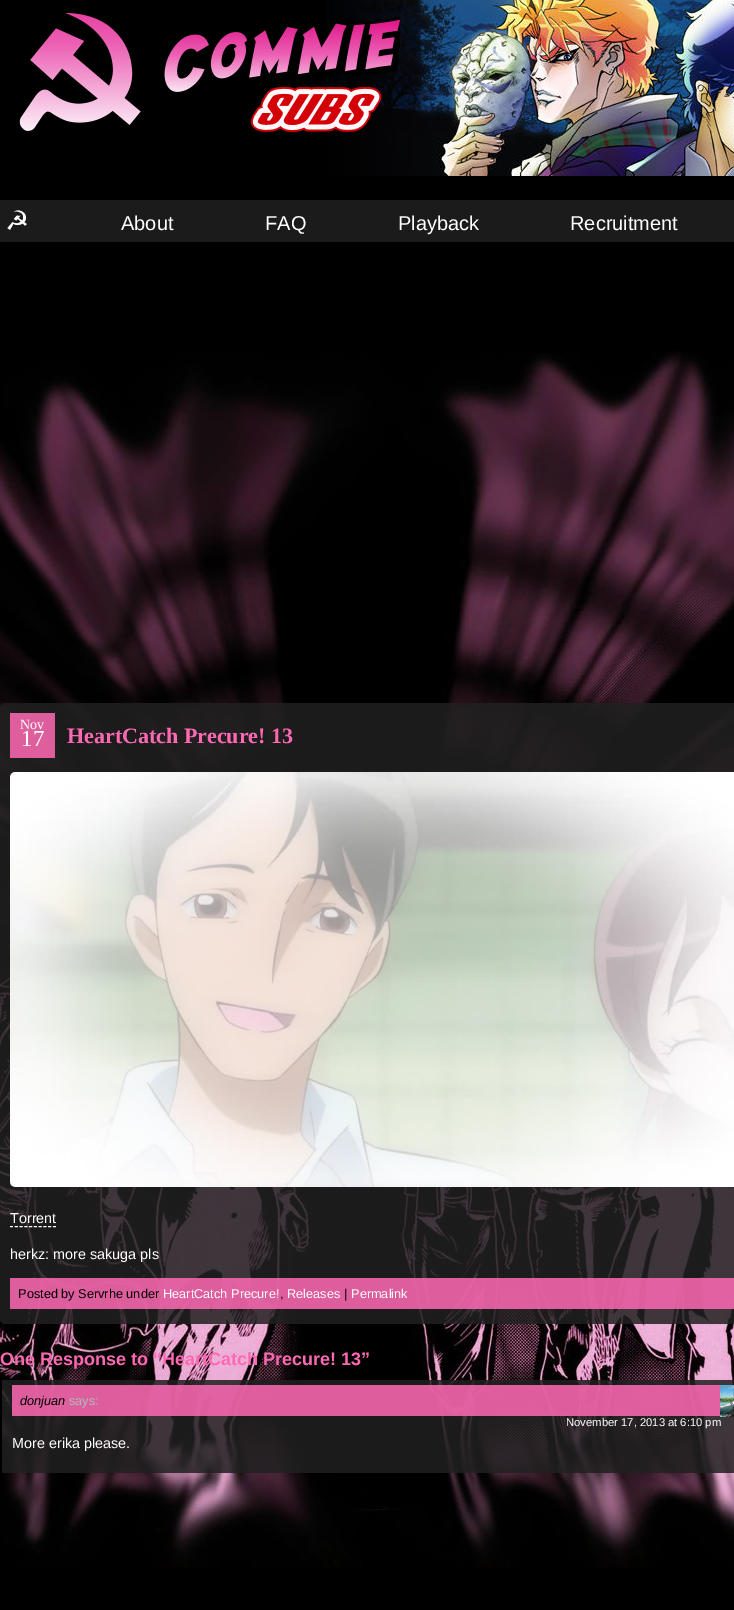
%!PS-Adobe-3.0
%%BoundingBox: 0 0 734 1610
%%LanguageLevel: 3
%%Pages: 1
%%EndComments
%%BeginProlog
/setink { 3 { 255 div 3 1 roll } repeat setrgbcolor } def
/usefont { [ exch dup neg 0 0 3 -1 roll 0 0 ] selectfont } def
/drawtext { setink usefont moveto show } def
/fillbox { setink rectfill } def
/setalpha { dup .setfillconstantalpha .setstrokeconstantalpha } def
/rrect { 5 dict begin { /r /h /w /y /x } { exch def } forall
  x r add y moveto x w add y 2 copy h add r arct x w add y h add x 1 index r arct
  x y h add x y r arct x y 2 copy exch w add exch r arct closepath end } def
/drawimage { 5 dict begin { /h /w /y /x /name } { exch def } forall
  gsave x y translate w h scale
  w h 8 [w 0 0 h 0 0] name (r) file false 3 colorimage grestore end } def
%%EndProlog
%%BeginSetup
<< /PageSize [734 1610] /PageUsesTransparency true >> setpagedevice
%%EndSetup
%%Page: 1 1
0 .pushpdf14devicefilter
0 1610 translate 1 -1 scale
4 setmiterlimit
0 0 734 1610 0 0 0 fillbox
(assets/img1.rgb) 0 351 734 1217 drawimage
(assets/img2.rgb) 19 0 715 176 drawimage
0 200 734 42 27 27 27 fillbox
(☭) 5 230 /DejaVuSans-Regular 27 255 255 255 drawtext
(About) 121 230 /LiberationSans-Regular 20 255 255 255 drawtext
(FAQ) 265 230 /LiberationSans-Regular 20 255 255 255 drawtext
(Playback) 398 230 /LiberationSans-Regular 20 255 255 255 drawtext
(Recruitment) 570 230 /LiberationSans-Regular 20 255 255 255 drawtext
0.85 setalpha
32 32 32 setink
0 703 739 621 5 rrect fill
10 713 45 45 255 105 180 fillbox
1 setalpha
(Nov) 20 729 /LiberationSerif-Regular 14 255 255 255 drawtext
(17) 21 746 /LiberationSerif-Regular 23 255 255 255 drawtext
(HeartCatch Precure! 13) 67 743 /LiberationSerif-Bold 22 255 105 180 drawtext
(assets/img3.rgb) 10 772 724 415 drawimage
(Torrent) 10 1223 /LiberationSans-Regular 14.4 255 255 255 drawtext
[3 1.78] 0 setdash
10 1226.5 moveto 56 1226.5 lineto stroke
(herkz: more sakuga pls) 10 1259 /LiberationSans-Regular 14.4 255 255 255 drawtext
0.85 setalpha
10 1278 724 31 255 105 180 fillbox
1 setalpha
(Posted by Servrhe under) 18 1298 /LiberationSans-Regular 12.75 0 0 0 drawtext
(HeartCatch Precure!) 163 1298 /LiberationSans-Regular 12.75 255 255 255 drawtext
(,) 280 1298 /LiberationSans-Regular 12.75 0 0 0 drawtext
(Releases) 287 1298 /LiberationSans-Regular 12.75 255 255 255 drawtext
(|) 344 1298 /LiberationSans-Regular 12.75 0 0 0 drawtext
(Permalink) 351 1298 /LiberationSans-Regular 12.75 255 255 255 drawtext
(One Response to “HeartCatch Precure! 13”) 0 1365 /LiberationSans-Bold 18 255 105 180 drawtext
0.85 setalpha
2 1380 732 93 32 32 32 fillbox
1 setalpha
0 1380 2 64 0 0 0 fillbox
0.85 setalpha
12 1385 708 31 255 105 180 fillbox
1 setalpha
(donjuan) 20 1405 /LiberationSans-Italic 12.75 0 0 0 drawtext
(says:) 69 1405 /LiberationSans-Regular 12.75 174 189 189 drawtext
(assets/img4.rgb) 720 1385 14 32 drawimage
(November 17, 2013 at 6:10 pm) 566 1426 /LiberationSans-Regular 11.25 255 255 255 drawtext
(More erika please.) 12 1448 /LiberationSans-Regular 14.4 255 255 255 drawtext
.poppdf14devicefilter showpage
%%EOF
